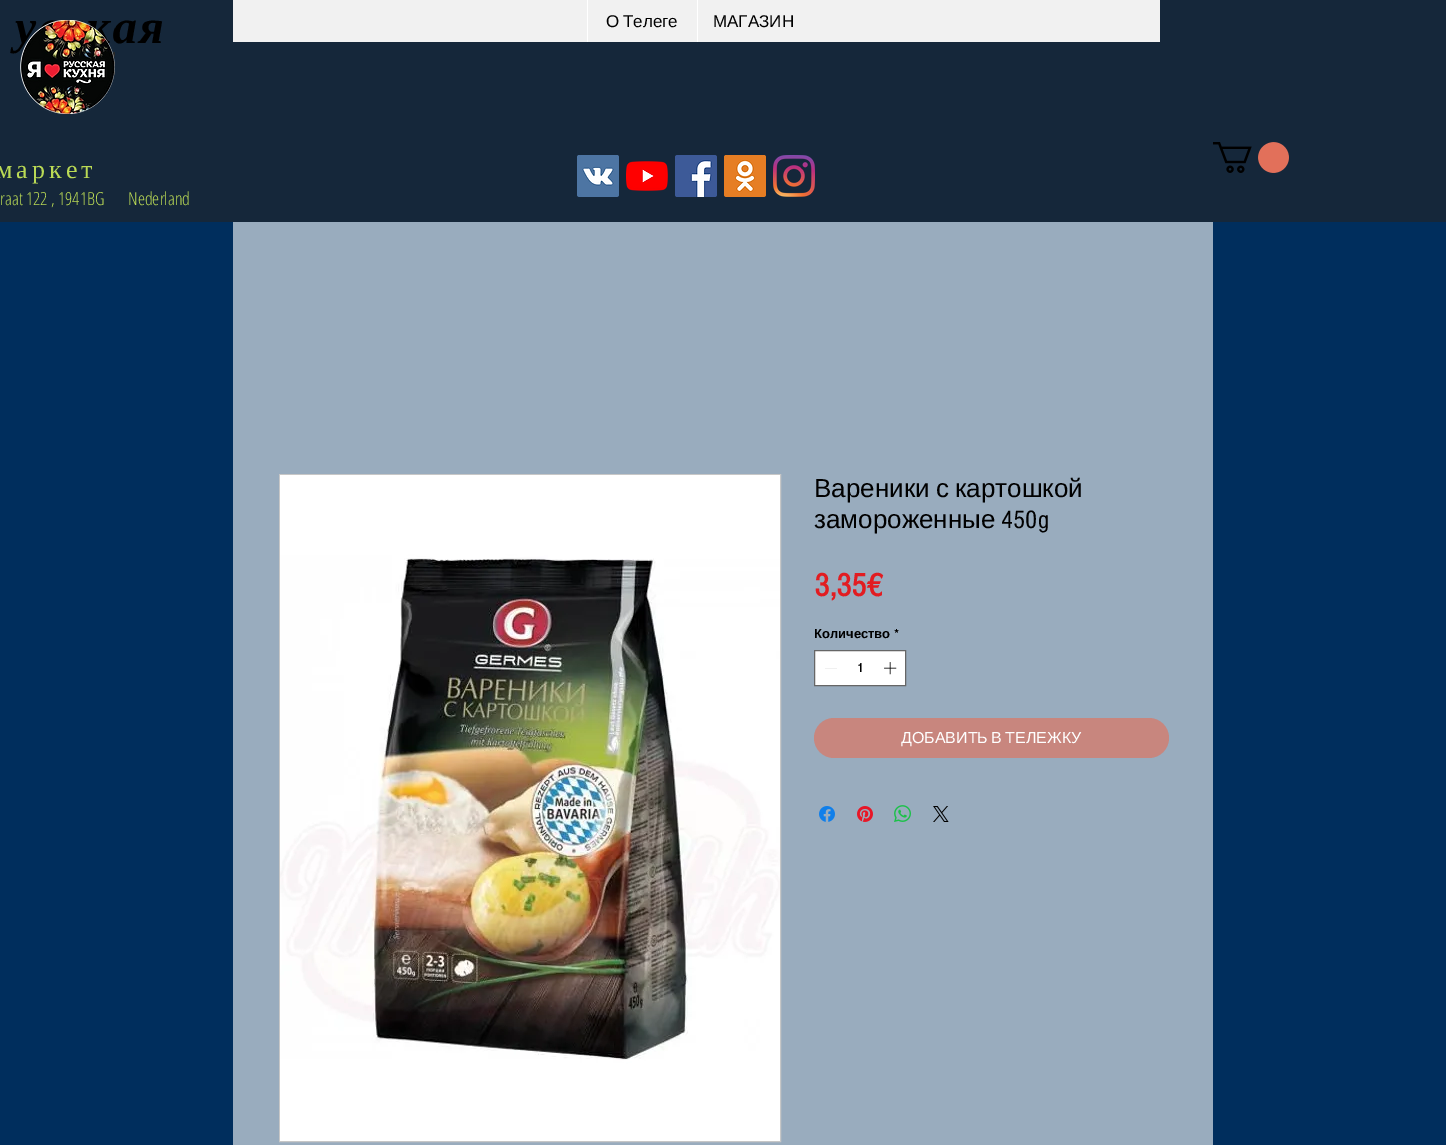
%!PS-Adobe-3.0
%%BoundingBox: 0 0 1446 1145
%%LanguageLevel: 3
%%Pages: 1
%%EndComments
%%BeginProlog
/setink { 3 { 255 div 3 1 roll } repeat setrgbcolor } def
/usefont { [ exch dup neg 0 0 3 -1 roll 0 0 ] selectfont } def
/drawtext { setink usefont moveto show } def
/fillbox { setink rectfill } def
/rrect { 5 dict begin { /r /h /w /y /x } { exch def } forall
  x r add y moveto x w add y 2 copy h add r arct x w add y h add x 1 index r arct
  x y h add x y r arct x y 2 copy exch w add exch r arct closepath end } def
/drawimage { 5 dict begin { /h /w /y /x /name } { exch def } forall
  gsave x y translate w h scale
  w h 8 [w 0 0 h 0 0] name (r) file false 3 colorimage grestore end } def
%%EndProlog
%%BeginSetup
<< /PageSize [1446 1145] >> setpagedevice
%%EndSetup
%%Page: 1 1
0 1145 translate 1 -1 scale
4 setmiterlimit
0 0 1446 1145 0 46 93 fillbox
0 0 1446 222 21 39 58 fillbox
/LiberationSerif-BoldItalic 48 usefont
0 0 0 setink
15 43 moveto 2 0 (у) ashow
113 43 moveto 2 0 (ая) ashow
233 0 927 42 241 241 241 fillbox
587 0 1 42 255 255 255 fillbox
/LiberationSans-Regular 17 usefont
0 0 0 setink
606 27 moveto -1 0 32 (О Телеге) widthshow
697 0 1 42 255 255 255 fillbox
(МАГАЗИН) 713 27 /LiberationSans-Regular 17 0 0 0 drawtext
/LiberationSerif-Regular 26 usefont
186 218 85 setink
-4 178 moveto 4 0 (маркет) ashow
(assets/img1.rgb) 577 155 42 42 drawimage
(assets/img2.rgb) 626 161 42 30 drawimage
(assets/img3.rgb) 675 155 42 42 drawimage
(assets/img4.rgb) 724 155 42 42 drawimage
(assets/img5.rgb) 773 155 42 42 drawimage
(assets/img6.rgb) 1213 142 76 31 drawimage
(raat 122 , 1941BG) 0 205 /OpenSansCondensed-Light 18 186 218 85 drawtext
(Nederland) 128 205 /OpenSansCondensed-Light 18 186 218 85 drawtext
(assets/img7.rgb) 20 20 95 94 drawimage
233 222 980 923 153 172 190 fillbox
199 199 199 setink
279.5 474.5 501 667 rectstroke
(assets/img8.rgb) 280 475 500 666 drawimage
/LiberationSans-Regular 26 usefont
0 0 0 setink
814 497 moveto -1 0 32 (Вареники с картошкой) widthshow
(замороженные) 814 528 /LiberationSans-Regular 26 0 0 0 drawtext
(450g) 1001 528 /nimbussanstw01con-Regular 26 0 0 0 drawtext
(3,35€) 814 596 /nimbussanstw01con-Bold 33 226 28 33 drawtext
(Количество) 814 638 /LiberationSans-Bold 13 0 0 0 drawtext
(*) 894 638 /nimbussanstw01con-Bold 13 0 0 0 drawtext
255 255 255 setink
814.5 650.5 moveto 905.5 650.5 lineto 905.5 685.5 lineto 814.5 685.5 lineto closepath gsave fill grestore
102 102 102 setink
stroke
227 227 227 setink
837 668 moveto 837 668.5 lineto 825 668.5 lineto 825 668 lineto closepath eofill
(1) 857 672 /nimbussanstw01con-Bold 13 0 0 0 drawtext
(assets/img9.rgb) 884 662 13 13 drawimage
200 134 126 setink
814 718 355 40 20 rrect fill
/LiberationSans-Regular 16 usefont
255 255 255 setink
901 743 moveto -1 0 32 (ДОБАВИТЬ В ТЕЛЕЖКУ) widthshow
(assets/img10.rgb) 819 806 16 16 drawimage
(assets/img11.rgb) 857 806 16 16 drawimage
(assets/img12.rgb) 894 805 17 17 drawimage
(assets/img13.rgb) 933 806 16 16 drawimage
showpage
%%EOF
